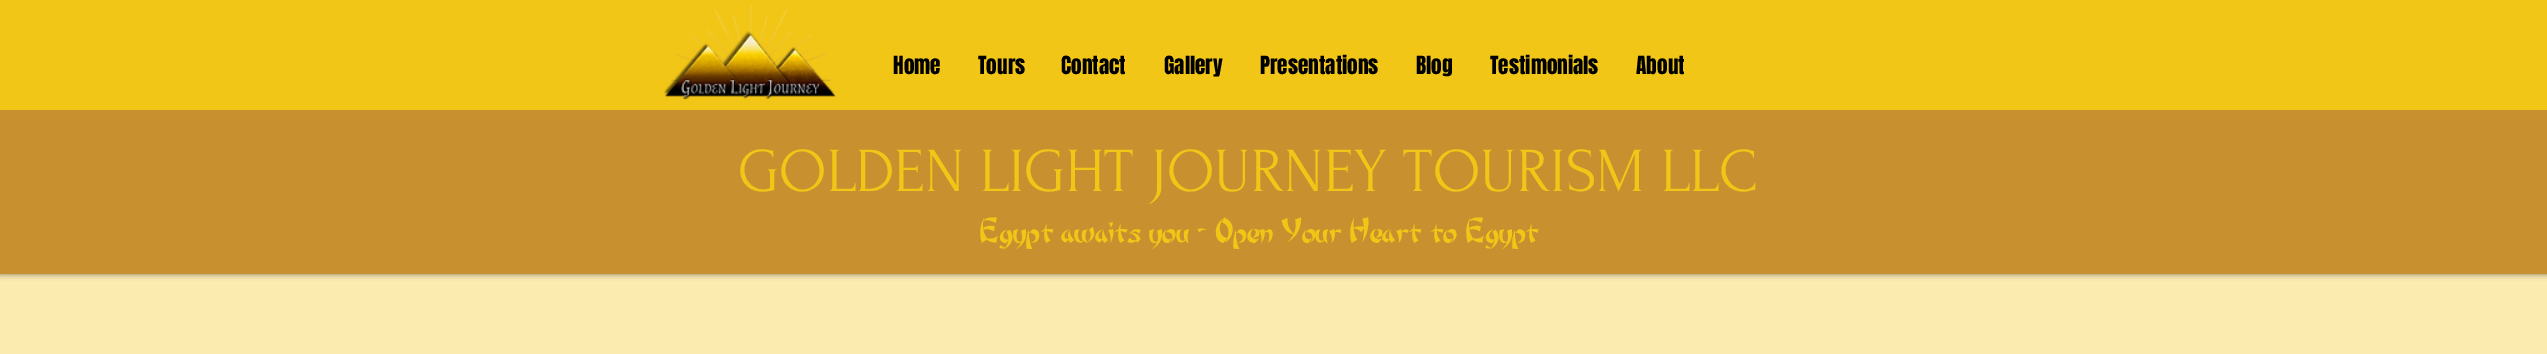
%!PS-Adobe-3.0
%%BoundingBox: 0 0 2547 354
%%LanguageLevel: 3
%%Pages: 1
%%EndComments
%%BeginProlog
/setink { 3 { 255 div 3 1 roll } repeat setrgbcolor } def
/usefont { [ exch dup neg 0 0 3 -1 roll 0 0 ] selectfont } def
/drawtext { setink usefont moveto show } def
/fillbox { setink rectfill } def
/setalpha { dup .setfillconstantalpha .setstrokeconstantalpha } def
/rrect { 5 dict begin { /r /h /w /y /x } { exch def } forall
  x r add y moveto x w add y 2 copy h add r arct x w add y h add x 1 index r arct
  x y h add x y r arct x y 2 copy exch w add exch r arct closepath end } def
/softshadow { 12 dict begin { /a /b /q /h /w /y /x } { exch def } forall gsave /was 0 def
  9 -2 -9 { dup b mul 4 div /e exch def 1 sub .425 mul 2.718 exch exp 1 add a .99 .min exch div /now exch def
    1 1 now sub 1 was sub div sub setalpha /was now def
    w h .min e 2 mul add 0 gt { x e sub y e sub w e 2 mul add h e 2 mul add
      q e add b .6 mul add w h .min 2 div e add .min 0 .max rrect fill } if } for grestore end } def
/drawimage { 5 dict begin { /h /w /y /x /name } { exch def } forall
  gsave x y translate w h scale
  w h 8 [w 0 0 h 0 0] name (r) file false 3 colorimage grestore end } def
%%EndProlog
%%BeginSetup
<< /PageSize [2547 354] /PageUsesTransparency true >> setpagedevice
%%EndSetup
%%Page: 1 1
0 .pushpdf14devicefilter
0 354 translate 1 -1 scale
4 setmiterlimit
0 0 2547 354 251 235 175 fillbox
0 0 0 setink
0 0 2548 274 0 3 0.5 softshadow
0 110 2547 164 200 144 47 fillbox
0 0 2547 110 242 198 23 fillbox
(assets/img1.rgb) 664 5 172 95 drawimage
(Home) 893 74 /Anton-Regular 21.25 0 0 0 drawtext
(Tours) 978 74 /Anton-Regular 21.25 0 0 0 drawtext
(Contact) 1061 74 /Anton-Regular 21.25 0 0 0 drawtext
(Gallery) 1164 74 /Anton-Regular 21.25 0 0 0 drawtext
(Presentations) 1260 74 /Anton-Regular 21.25 0 0 0 drawtext
(Blog) 1416 74 /Anton-Regular 21.25 0 0 0 drawtext
(Testimonials) 1490 74 /Anton-Regular 21.25 0 0 0 drawtext
(About) 1636 74 /Anton-Regular 21.25 0 0 0 drawtext
(GOLDEN LIGHT JOURNEY TOURISM LLC) 738 191 /Forum-Regular 62.5 242 198 23 drawtext
(Egypt awaits you - Open Your Heart to Egypt) 979 243 /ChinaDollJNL-Regular 33.75 242 198 23 drawtext
.poppdf14devicefilter showpage
%%EOF
